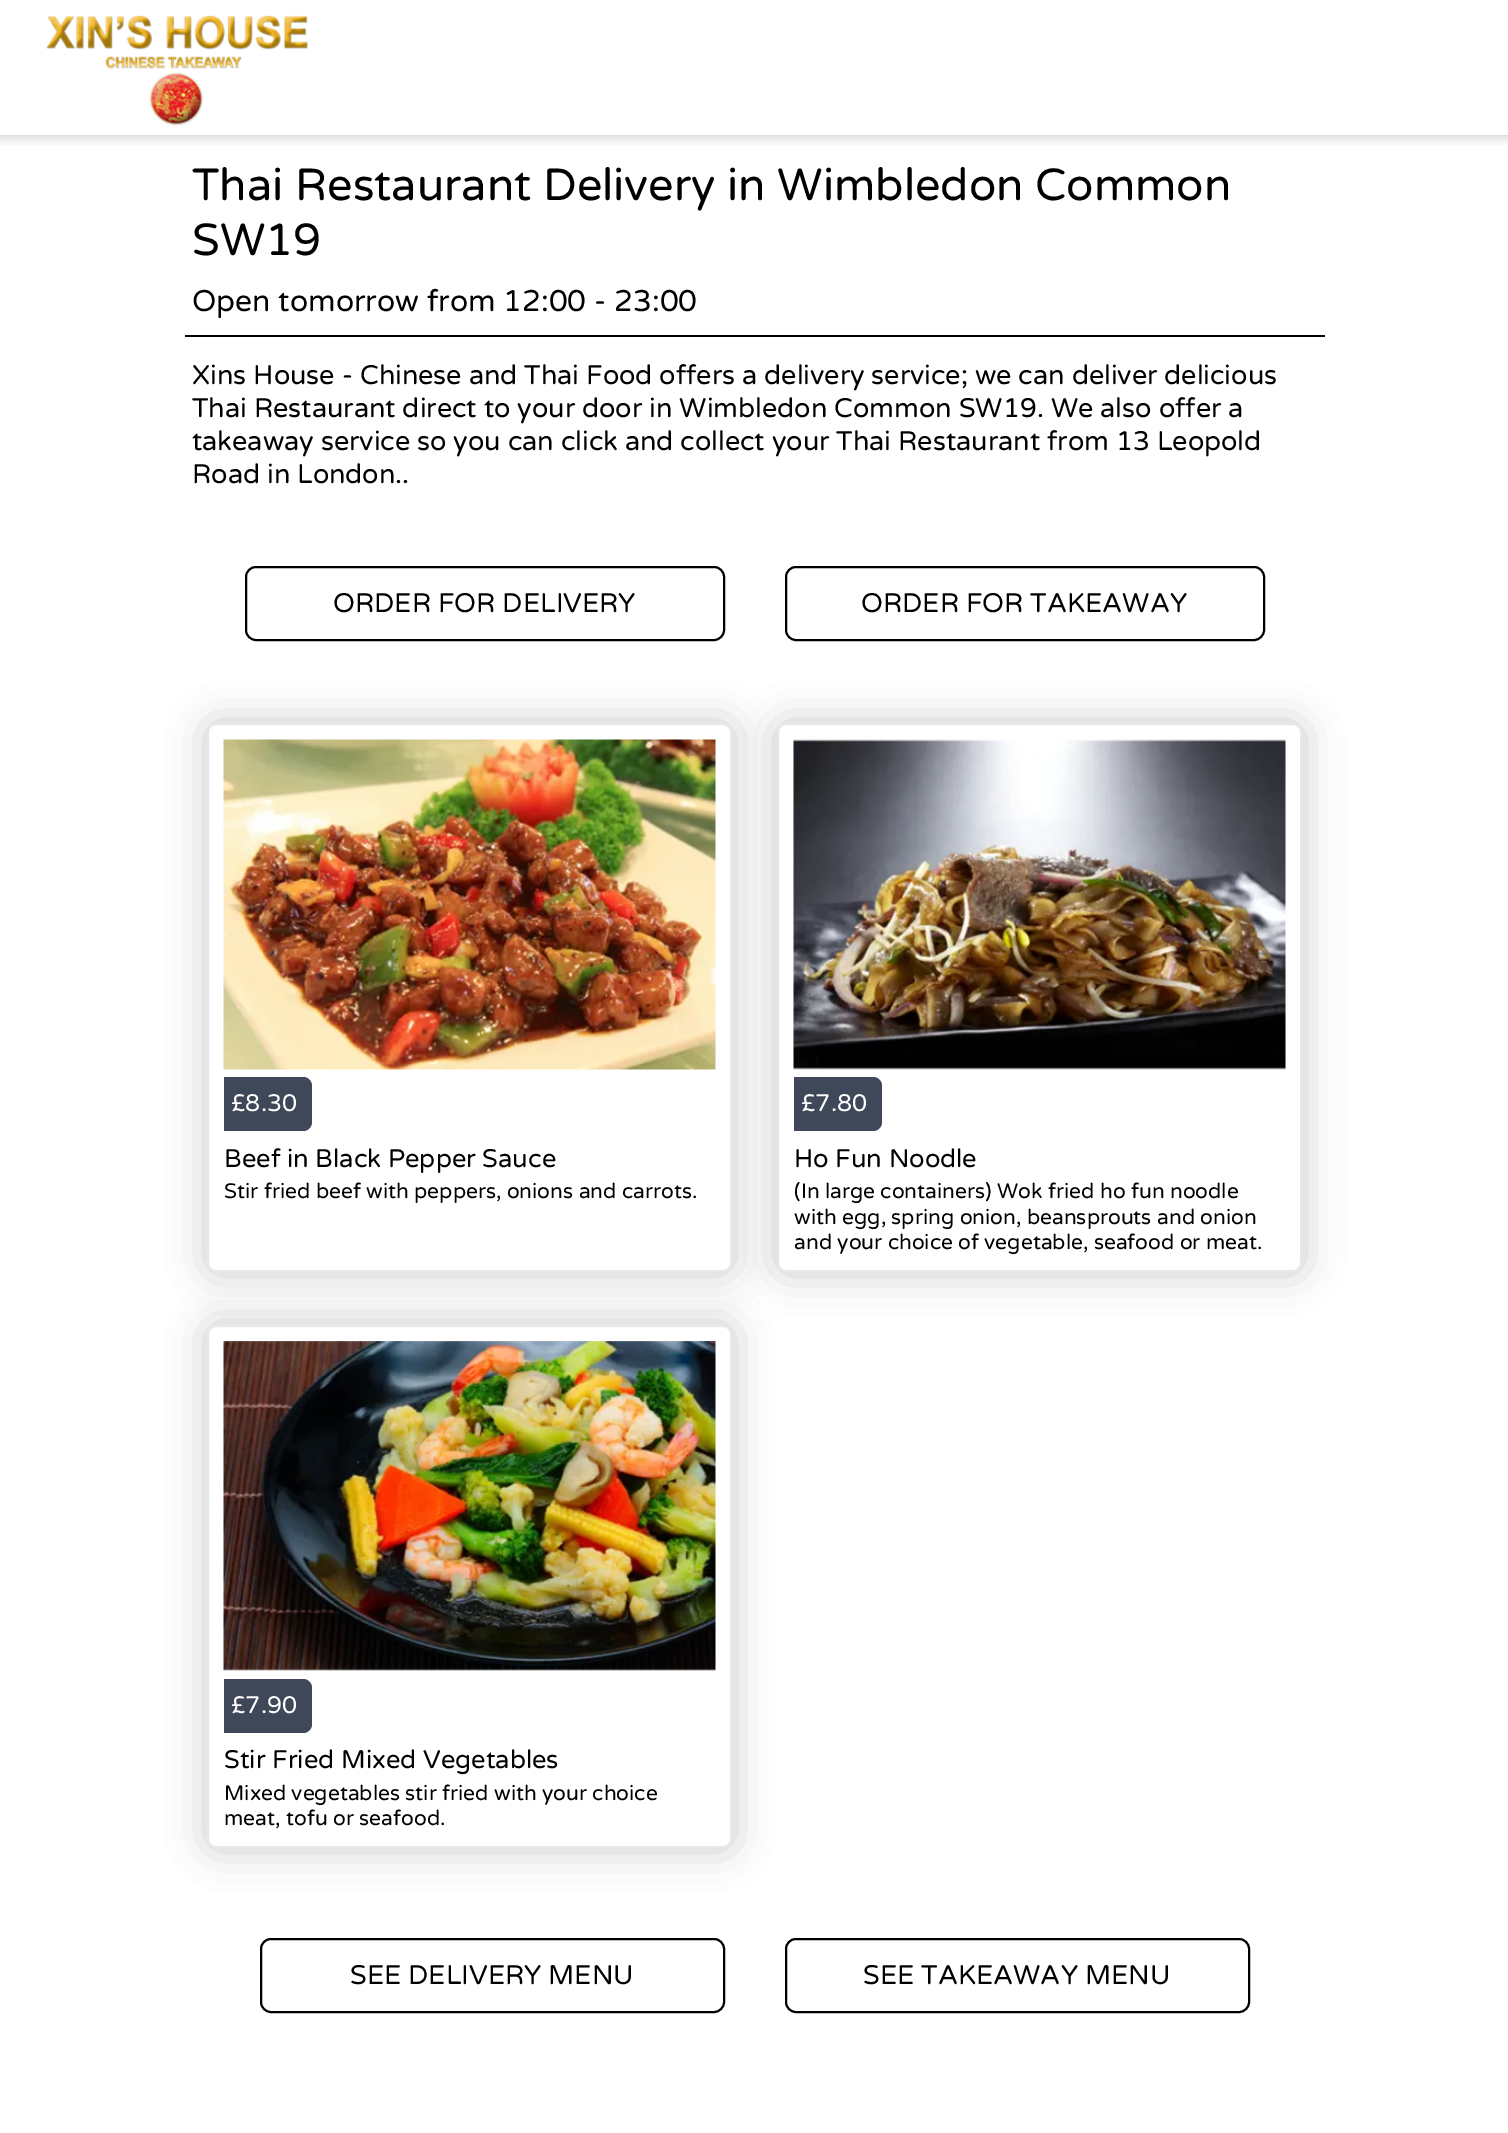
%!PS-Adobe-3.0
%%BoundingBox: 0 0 1508 2133
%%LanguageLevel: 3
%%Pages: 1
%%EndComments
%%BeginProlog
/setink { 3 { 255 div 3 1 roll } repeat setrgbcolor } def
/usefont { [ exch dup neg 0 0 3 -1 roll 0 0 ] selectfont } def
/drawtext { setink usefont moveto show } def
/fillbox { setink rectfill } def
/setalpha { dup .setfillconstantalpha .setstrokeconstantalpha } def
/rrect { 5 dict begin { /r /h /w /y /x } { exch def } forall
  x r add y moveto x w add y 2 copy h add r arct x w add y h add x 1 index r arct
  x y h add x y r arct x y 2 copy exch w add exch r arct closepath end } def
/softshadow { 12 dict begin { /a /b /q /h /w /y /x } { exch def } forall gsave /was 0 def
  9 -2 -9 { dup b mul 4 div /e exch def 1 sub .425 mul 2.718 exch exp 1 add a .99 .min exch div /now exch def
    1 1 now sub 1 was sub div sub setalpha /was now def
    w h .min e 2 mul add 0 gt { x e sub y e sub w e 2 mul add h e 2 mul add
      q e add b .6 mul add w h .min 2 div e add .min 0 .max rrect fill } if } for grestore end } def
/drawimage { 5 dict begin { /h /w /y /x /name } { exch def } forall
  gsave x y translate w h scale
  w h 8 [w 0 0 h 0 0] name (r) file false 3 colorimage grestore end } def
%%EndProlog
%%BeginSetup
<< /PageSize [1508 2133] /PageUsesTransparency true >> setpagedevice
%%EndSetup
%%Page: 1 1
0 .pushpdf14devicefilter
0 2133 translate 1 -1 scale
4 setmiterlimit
0 0 1508 2133 255 255 255 fillbox
gsave
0 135 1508 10 rectclip
53 53 53 setink
-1 -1 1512 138 0 6 0.25 softshadow
grestore
(assets/img1.rgb) 46 15 262 111 drawimage
(Thai Restaurant Delivery in Wimbledon Common) 192 200 /VarelaRound-Regular 45 0 0 0 drawtext
(SW19) 192 255 /VarelaRound-Regular 45 0 0 0 drawtext
185 335 1140 2 0 0 0 fillbox
(Open tomorrow from 12:00 - 23:00) 192 311 /VarelaRound-Regular 30 0 0 0 drawtext
(Xins House - Chinese and Thai Food offers a delivery service; we can deliver delicious) 192 384 /VarelaRound-Regular 27 0 0 0 drawtext
(Thai Restaurant direct to your door in Wimbledon Common SW19. We also offer a) 192 417 /VarelaRound-Regular 27 0 0 0 drawtext
(takeaway service so you can click and collect your Thai Restaurant from 13 Leopold) 192 450 /VarelaRound-Regular 27 0 0 0 drawtext
(Road in London..) 192 483 /VarelaRound-Regular 27 0 0 0 drawtext
2 setlinewidth
246 567 478 73 10 rrect stroke
(ORDER FOR DELIVERY) 333 612 /VarelaRound-Regular 27 0 0 0 drawtext
786 567 478 73 10 rrect stroke
(ORDER FOR TAKEAWAY) 861 612 /VarelaRound-Regular 27 0 0 0 drawtext
53 53 53 setink
206 722 528 552 11 19 0.25 softshadow
255 255 255 setink
208 724 523 547 8 rrect gsave fill grestore
232 232 232 setink
stroke
(assets/img2.rgb) 223 739 493 331 drawimage
63 72 88 setink
224 1077 moveto 303 1077 lineto 308 1077 312 1081 312 1086 curveto 312 1122 lineto 312 1127 308 1131 303 1131 curveto 224 1131 lineto closepath fill
(£8.30) 231 1111 /VarelaRound-Regular 24 255 255 255 drawtext
(Beef in Black Pepper Sauce) 224 1167 /VarelaRound-Regular 25.5 0 0 0 drawtext
(Stir fried beef with peppers, onions and carrots.) 224 1198 /VarelaRound-Regular 21 0 0 0 drawtext
53 53 53 setink
776 722 528 552 11 19 0.25 softshadow
255 255 255 setink
778 724 523 547 8 rrect gsave fill grestore
232 232 232 setink
stroke
(assets/img3.rgb) 793 739 493 331 drawimage
63 72 88 setink
794 1077 moveto 873 1077 lineto 878 1077 882 1081 882 1086 curveto 882 1122 lineto 882 1127 878 1131 873 1131 curveto 794 1131 lineto closepath fill
(£7.80) 801 1111 /VarelaRound-Regular 24 255 255 255 drawtext
(Ho Fun Noodle) 794 1167 /VarelaRound-Regular 25.5 0 0 0 drawtext
(\(In large containers\) Wok fried ho fun noodle) 794 1198 /VarelaRound-Regular 21 0 0 0 drawtext
(with egg, spring onion, beansprouts and onion) 794 1224 /VarelaRound-Regular 21 0 0 0 drawtext
(and your choice of vegetable, seafood or meat.) 794 1249 /VarelaRound-Regular 21 0 0 0 drawtext
53 53 53 setink
206 1323 528 527 11 19 0.25 softshadow
255 255 255 setink
208 1326 523 521 8 rrect gsave fill grestore
232 232 232 setink
stroke
(assets/img4.rgb) 223 1341 493 330 drawimage
63 72 88 setink
224 1679 moveto 303 1679 lineto 308 1679 312 1683 312 1688 curveto 312 1724 lineto 312 1729 308 1733 303 1733 curveto 224 1733 lineto closepath fill
(£7.90) 231 1713 /VarelaRound-Regular 24 255 255 255 drawtext
(Stir Fried Mixed Vegetables) 224 1768 /VarelaRound-Regular 25.5 0 0 0 drawtext
(Mixed vegetables stir fried with your choice) 224 1800 /VarelaRound-Regular 21 0 0 0 drawtext
(meat, tofu or seafood.) 224 1825 /VarelaRound-Regular 21 0 0 0 drawtext
261 1939 463 73 10 rrect stroke
(SEE DELIVERY MENU) 350 1984 /VarelaRound-Regular 27 0 0 0 drawtext
786 1939 463 73 10 rrect stroke
(SEE TAKEAWAY MENU) 863 1984 /VarelaRound-Regular 27 0 0 0 drawtext
.poppdf14devicefilter showpage
%%EOF
